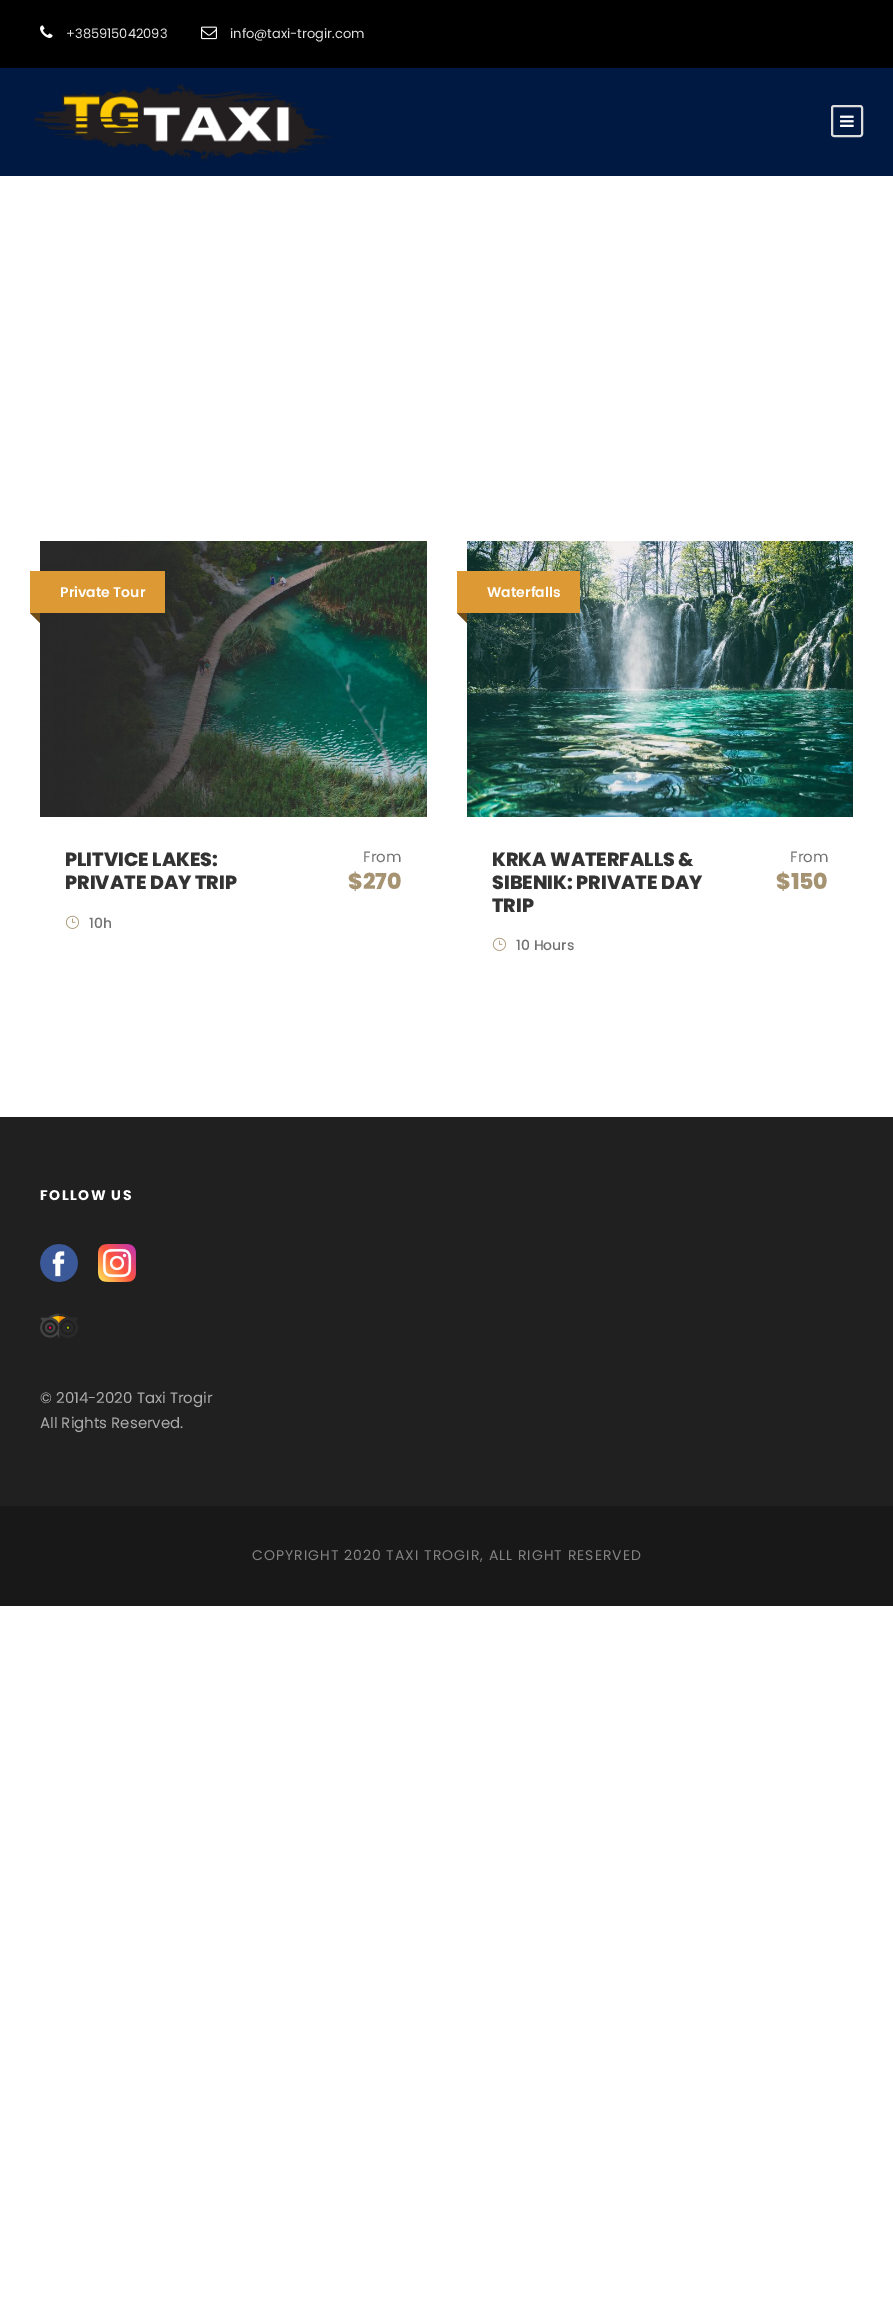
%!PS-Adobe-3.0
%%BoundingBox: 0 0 893 2310
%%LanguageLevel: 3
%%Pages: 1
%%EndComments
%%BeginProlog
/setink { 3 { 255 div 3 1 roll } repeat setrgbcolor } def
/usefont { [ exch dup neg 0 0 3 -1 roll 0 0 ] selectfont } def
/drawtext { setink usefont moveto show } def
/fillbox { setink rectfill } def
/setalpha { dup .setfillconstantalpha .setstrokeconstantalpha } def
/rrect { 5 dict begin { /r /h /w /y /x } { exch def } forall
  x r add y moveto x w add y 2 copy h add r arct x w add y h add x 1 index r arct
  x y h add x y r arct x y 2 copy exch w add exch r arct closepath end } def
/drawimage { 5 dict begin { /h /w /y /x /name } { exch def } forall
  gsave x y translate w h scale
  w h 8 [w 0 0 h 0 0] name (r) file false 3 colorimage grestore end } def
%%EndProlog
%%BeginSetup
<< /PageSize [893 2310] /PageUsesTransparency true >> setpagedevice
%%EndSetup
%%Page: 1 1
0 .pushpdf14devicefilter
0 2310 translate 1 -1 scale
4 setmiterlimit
0 0 893 2310 255 255 255 fillbox
0 0 893 68 0 0 0 fillbox
(assets/img1.rgb) 40 25 13 13 drawimage
(+385915042093) 66 38 /Poppins-Regular 13 226 226 226 drawtext
(assets/img2.rgb) 201 26 16 14 drawimage
(info@taxi-trogir.com) 230 38 /Poppins-Regular 13 226 226 226 drawtext
0 68 893 108 0 25 66 fillbox
(assets/img3.rgb) 35 83 299 78 drawimage
221 221 221 setink
2 setlinewidth
832 106 30 30 2 rrect stroke
(assets/img4.rgb) 840 115 14 12 drawimage
(assets/img6.rgb) 40 541 387 276 drawimage
30 571 135 42 221 153 51 fillbox
(Private Tour) 60 597 /Poppins-SemiBold 14 255 255 255 drawtext
(assets/img5.rgb) 30 613 10 10 drawimage
0.5 setalpha
221 153 51 setink
40 613 moveto 40 623 lineto 30 613 lineto closepath fill
1 setalpha
(PLITVICE LAKES:) 65 866 /Poppins-ExtraBold 19 51 51 51 drawtext
(PRIVATE DAY TRIP) 65 889 /Poppins-ExtraBold 19 51 51 51 drawtext
(From) 363 862 /Poppins-Regular 15 114 114 114 drawtext
($270) 348 889 /Poppins-ExtraBold 22 166 147 113 drawtext
(assets/img7.rgb) 65 915 14 14 drawimage
(10h) 89 928 /Poppins-Medium 14 114 114 114 drawtext
(assets/img8.rgb) 467 541 386 276 drawimage
457 571 123 42 221 153 51 fillbox
(Waterfalls) 487 597 /Poppins-SemiBold 14 255 255 255 drawtext
(assets/img5.rgb) 457 613 10 10 drawimage
0.5 setalpha
221 153 51 setink
467 613 moveto 467 623 lineto 457 613 lineto closepath fill
1 setalpha
(KRKA WATERFALLS &) 492 866 /Poppins-ExtraBold 19 51 51 51 drawtext
(SIBENIK: PRIVATE DAY) 492 889 /Poppins-ExtraBold 19 51 51 51 drawtext
(TRIP) 492 912 /Poppins-ExtraBold 19 51 51 51 drawtext
(From) 790 862 /Poppins-Regular 15 114 114 114 drawtext
($150) 776 889 /Poppins-ExtraBold 22 166 147 113 drawtext
(assets/img7.rgb) 492 937 14 14 drawimage
(10 Hours) 516 950 /Poppins-Medium 14 114 114 114 drawtext
0 1117 893 389 32 32 32 fillbox
/Poppins-Bold 14 usefont
255 255 255 setink
40 1200 moveto 1.5 0 (FOLLOW US) ashow
(assets/img9.rgb) 40 1244 38 38 drawimage
(assets/img10.rgb) 98 1244 38 38 drawimage
(assets/img11.rgb) 40 1313 38 25 drawimage
(© 2014-2020 Taxi Trogir) 40 1403 /Poppins-Regular 15 171 171 171 drawtext
(All Rights Reserved.) 40 1428 /Poppins-Regular 15 171 171 171 drawtext
0 1506 893 100 24 24 24 fillbox
/Poppins-Regular 14 usefont
131 131 131 setink
252 1560 moveto 1 0 (COPYRIGHT 2020 TAXI TROGIR, ALL RIGHT RESERVED) ashow
.poppdf14devicefilter showpage
%%EOF
